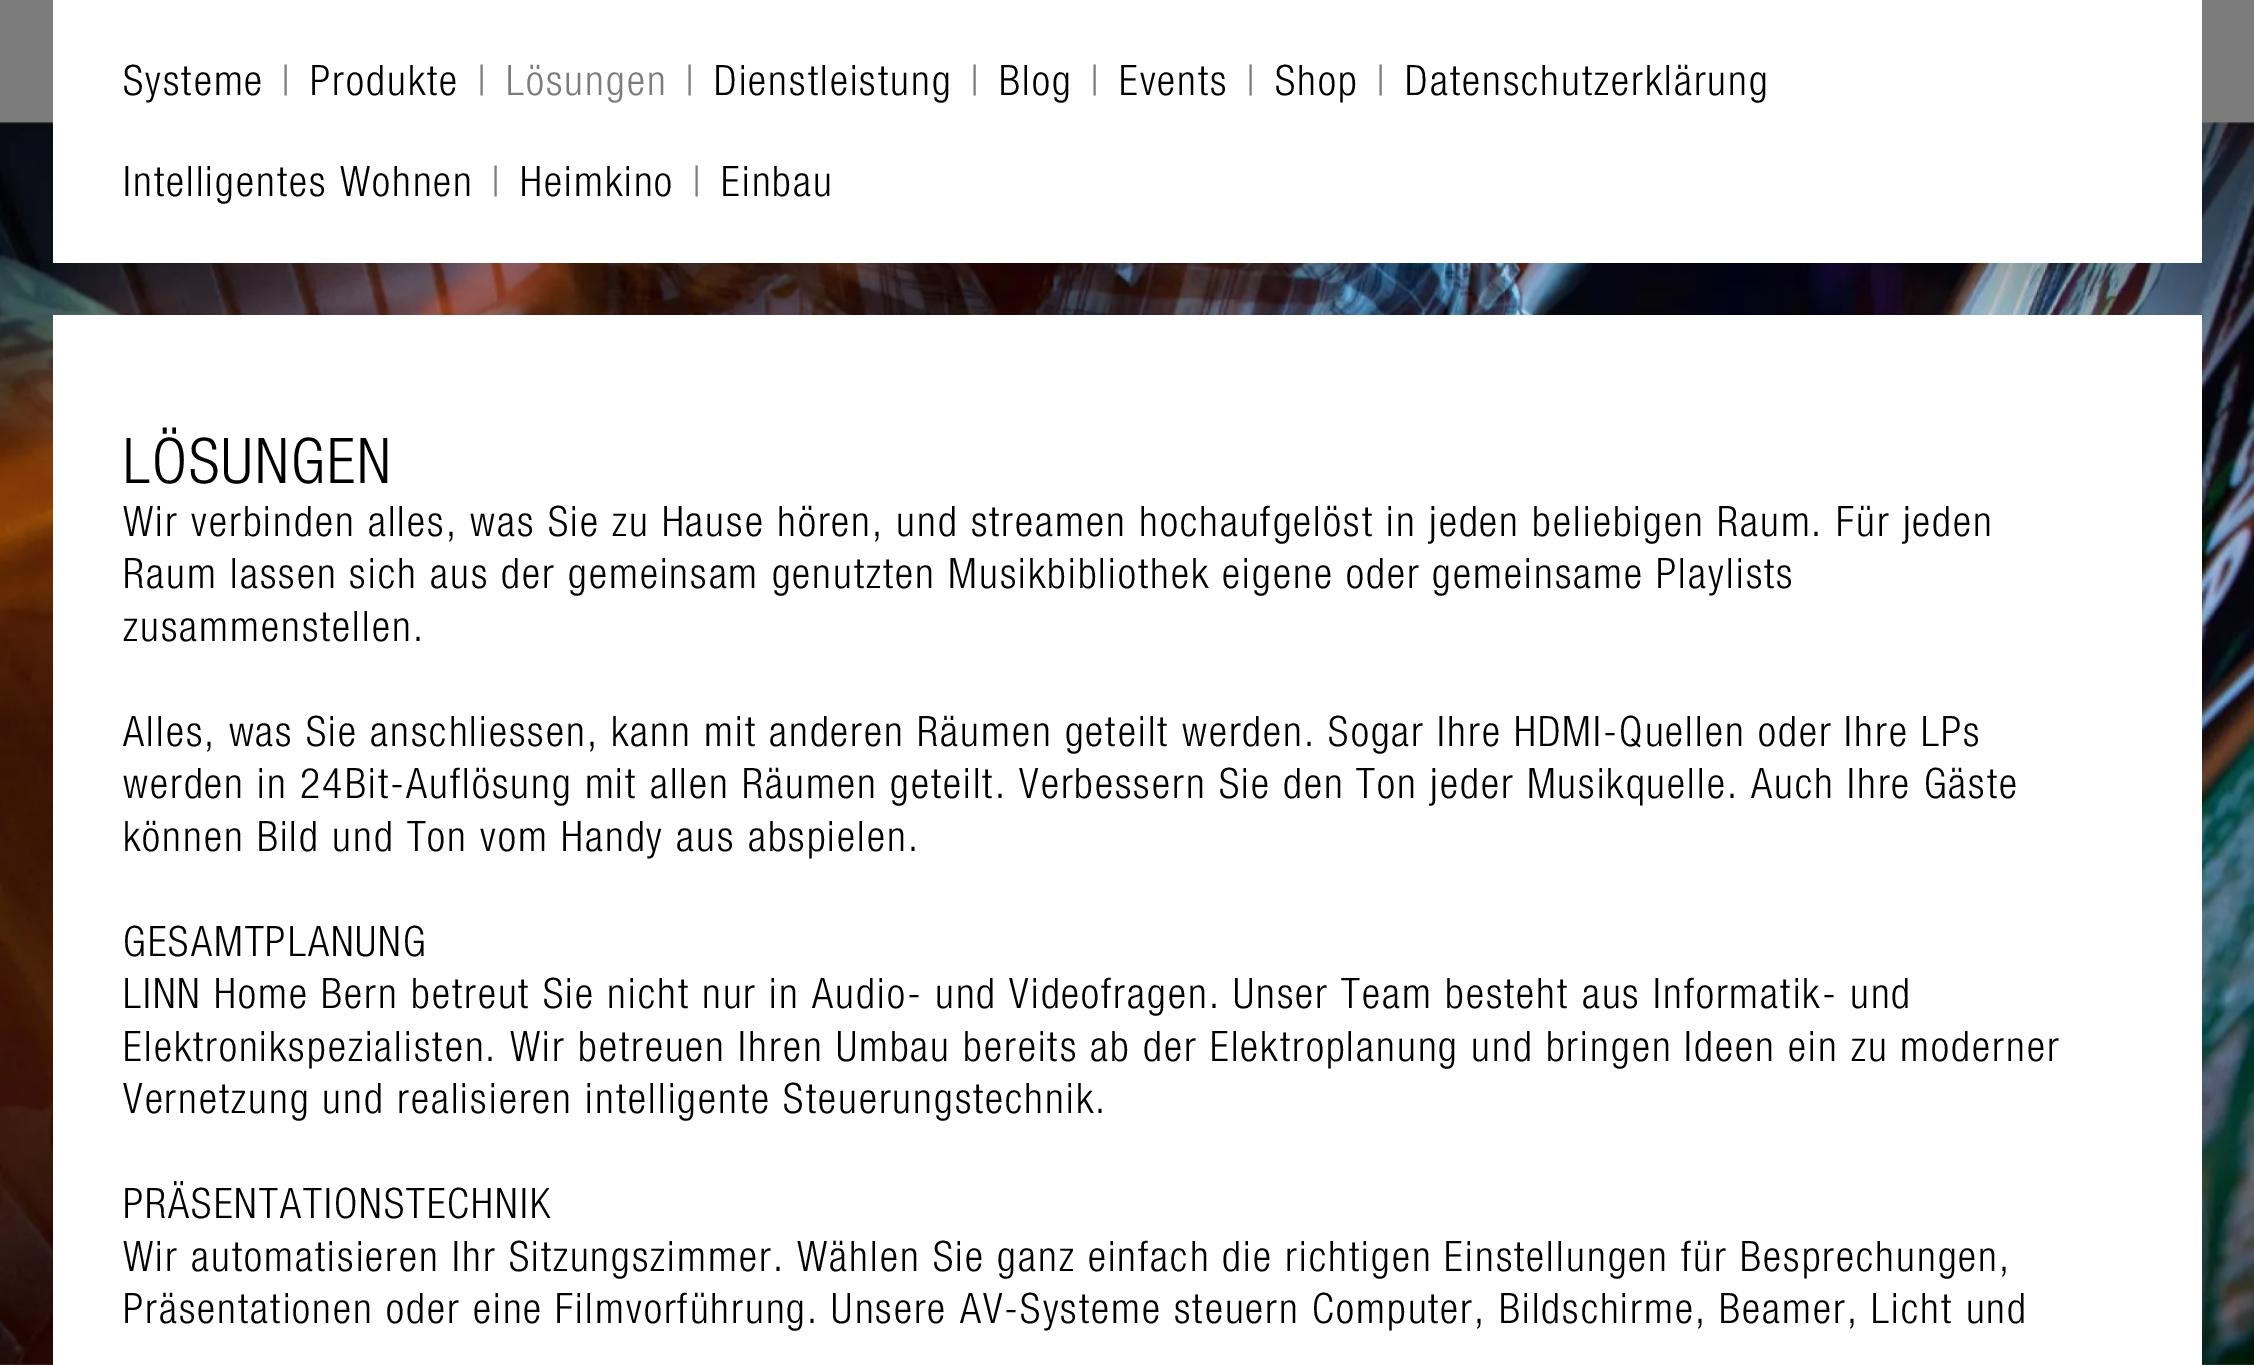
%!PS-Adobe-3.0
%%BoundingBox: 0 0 2254 1365
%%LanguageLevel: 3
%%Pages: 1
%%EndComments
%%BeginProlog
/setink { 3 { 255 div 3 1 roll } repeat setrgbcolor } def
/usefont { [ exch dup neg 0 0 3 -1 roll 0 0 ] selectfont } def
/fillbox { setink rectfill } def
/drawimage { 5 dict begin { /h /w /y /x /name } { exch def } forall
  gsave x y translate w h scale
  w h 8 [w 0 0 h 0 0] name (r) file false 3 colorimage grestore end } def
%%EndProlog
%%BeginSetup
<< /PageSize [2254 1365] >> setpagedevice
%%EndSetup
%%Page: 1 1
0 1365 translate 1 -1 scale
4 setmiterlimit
0 0 2254 1365 124 124 124 fillbox
(assets/img1.rgb) 0 122 2254 1243 drawimage
53 0 2149 263 255 255 255 fillbox
/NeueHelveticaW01-Regular 42 usefont
0 0 0 setink
123 95 moveto 2.1 0 (Systeme) ashow
124 124 124 setink
281 95 moveto 2.1 0 (|) ashow
0 0 0 setink
310 95 moveto 2.1 0 (Produkte) ashow
124 124 124 setink
477 95 moveto 2.1 0 (|) ashow
506 95 moveto 2.1 0 (Lösungen) ashow
685 95 moveto 2.1 0 (|) ashow
0 0 0 setink
714 95 moveto 2.1 0 (Dienstleistung) ashow
124 124 124 setink
970 95 moveto 2.1 0 (|) ashow
0 0 0 setink
999 95 moveto 2.1 0 (Blog) ashow
124 124 124 setink
1090 95 moveto 2.1 0 (|) ashow
0 0 0 setink
1119 95 moveto 2.1 0 (Events) ashow
124 124 124 setink
1246 95 moveto 2.1 0 (|) ashow
0 0 0 setink
1275 95 moveto 2.1 0 (Shop) ashow
124 124 124 setink
1376 95 moveto 2.1 0 (|) ashow
0 0 0 setink
1405 95 moveto 2.1 0 (Datenschutzerklärung) ashow
123 196 moveto 2.1 0 (Intelligentes Wohnen) ashow
124 124 124 setink
491 196 moveto 2.1 0 (|) ashow
0 0 0 setink
520 196 moveto 2.1 0 (Heimkino) ashow
124 124 124 setink
692 196 moveto 2.1 0 (|) ashow
0 0 0 setink
721 196 moveto 2.1 0 (Einbau) ashow
53 315 2149 1050 255 255 255 fillbox
/NeueHelveticaW01-Regular 63 usefont
0 0 0 setink
123 483 moveto 2.1 0 (LÖSUNGEN) ashow
/NeueHelveticaW01-Regular 42 usefont
123 536 moveto 2.1 0 (Wir verbinden alles, was Sie zu Hause hören, und streamen hochaufgelöst in jeden beliebigen Raum. Für jeden) ashow
123 588 moveto 2.1 0 (Raum lassen sich aus der gemeinsam genutzten Musikbibliothek eigene oder gemeinsame Playlists) ashow
123 641 moveto 2.1 0 (zusammenstellen.) ashow
123 746 moveto 2.1 0 (Alles, was Sie anschliessen, kann mit anderen Räumen geteilt werden. Sogar Ihre HDMI-Quellen oder Ihre LPs) ashow
123 798 moveto 2.1 0 (werden in 24Bit-Auflösung mit allen Räumen geteilt. Verbessern Sie den Ton jeder Musikquelle. Auch Ihre Gäste) ashow
123 851 moveto 2.1 0 (können Bild und Ton vom Handy aus abspielen.) ashow
123 956 moveto 2.1 0 (GESAMTPLANUNG) ashow
123 1008 moveto 2.1 0 (LINN Home Bern betreut Sie nicht nur in Audio- und Videofragen. Unser Team besteht aus Informatik- und) ashow
123 1061 moveto 2.1 0 (Elektronikspezialisten. Wir betreuen Ihren Umbau bereits ab der Elektroplanung und bringen Ideen ein zu moderner) ashow
123 1113 moveto 2.1 0 (Vernetzung und realisieren intelligente Steuerungstechnik.) ashow
123 1218 moveto 2.1 0 (PRÄSENTATIONSTECHNIK) ashow
123 1271 moveto 2.1 0 (Wir automatisieren Ihr Sitzungszimmer. Wählen Sie ganz einfach die richtigen Einstellungen für Besprechungen,) ashow
123 1323 moveto 2.1 0 (Präsentationen oder eine Filmvorführung. Unsere AV-Systeme steuern Computer, Bildschirme, Beamer, Licht und) ashow
showpage
%%EOF
